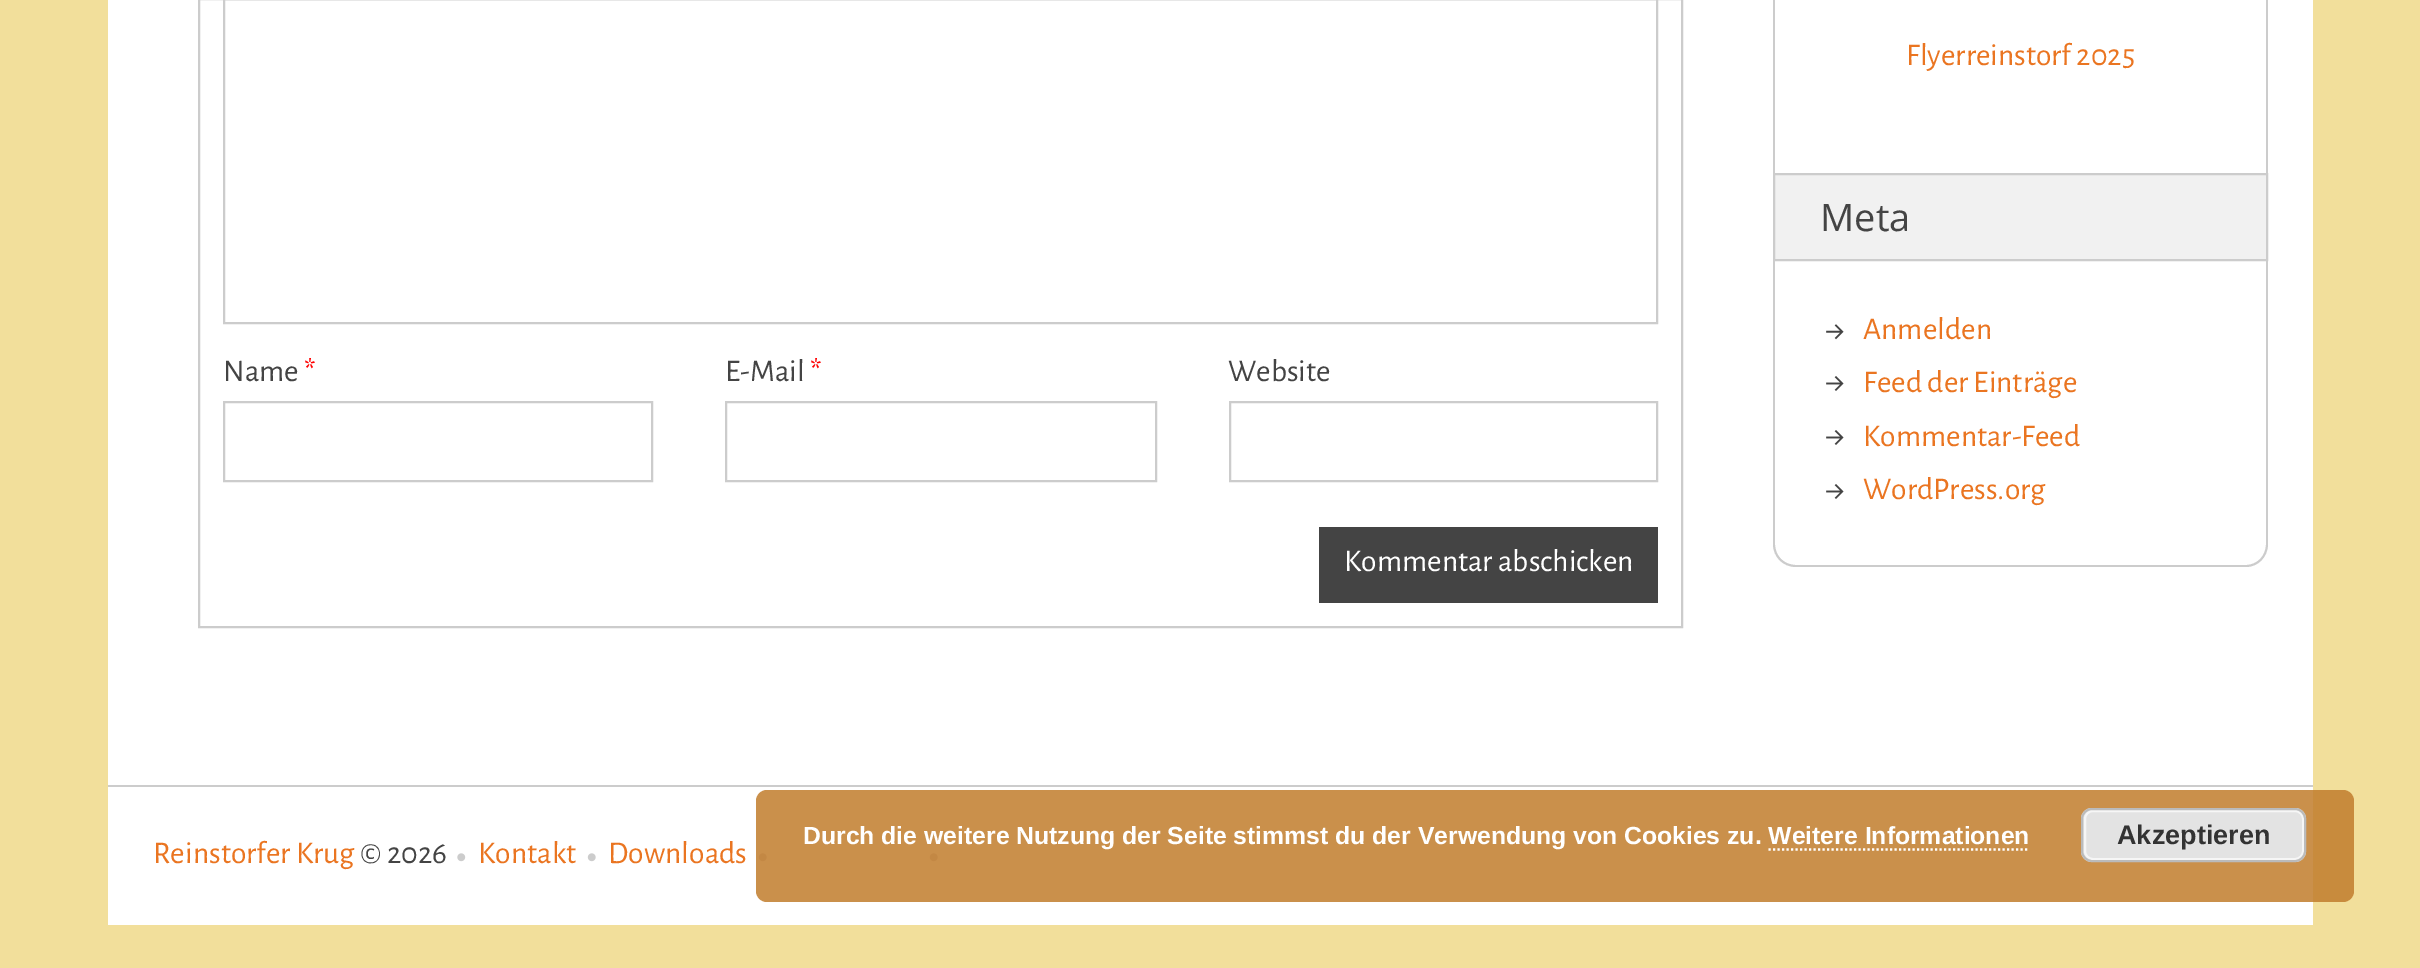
%!PS-Adobe-3.0
%%BoundingBox: 0 0 2420 968
%%LanguageLevel: 3
%%Pages: 1
%%EndComments
%%BeginProlog
/setink { 3 { 255 div 3 1 roll } repeat setrgbcolor } def
/usefont { [ exch dup neg 0 0 3 -1 roll 0 0 ] selectfont } def
/drawtext { setink usefont moveto show } def
/fillbox { setink rectfill } def
/setalpha { dup .setfillconstantalpha .setstrokeconstantalpha } def
/rrect { 5 dict begin { /r /h /w /y /x } { exch def } forall
  x r add y moveto x w add y 2 copy h add r arct x w add y h add x 1 index r arct
  x y h add x y r arct x y 2 copy exch w add exch r arct closepath end } def
/drawimage { 5 dict begin { /h /w /y /x /name } { exch def } forall
  gsave x y translate w h scale
  w h 8 [w 0 0 h 0 0] name (r) file false 3 colorimage grestore end } def
%%EndProlog
%%BeginSetup
<< /PageSize [2420 968] /PageUsesTransparency true >> setpagedevice
%%EndSetup
%%Page: 1 1
0 .pushpdf14devicefilter
0 968 translate 1 -1 scale
4 setmiterlimit
0 0 2420 968 242 223 155 fillbox
108 0 2205 925 255 255 255 fillbox
204 204 204 setink
2 setlinewidth
199 -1 1483 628 rectstroke
224 -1 1433 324 rectstroke
(Name) 223 381 /AlegreyaSans-Regular 31.5 68 68 68 drawtext
(*) 304 381 /AlegreyaSans-Regular 31.5 255 0 0 drawtext
204 204 204 setink
224 402 428 79 rectstroke
(E-Mail) 725 381 /AlegreyaSans-Regular 31.5 68 68 68 drawtext
(*) 810 381 /AlegreyaSans-Regular 31.5 255 0 0 drawtext
204 204 204 setink
726 402 430 79 rectstroke
(Website) 1228 381 /AlegreyaSans-Regular 31.5 68 68 68 drawtext
204 204 204 setink
1230 402 427 79 rectstroke
1319 527 339 76 68 68 68 fillbox
(Kommentar abschicken) 1344 571 /AlegreyaSans-Regular 31.5 255 255 255 drawtext
2266 0 2 176 204 204 204 fillbox
1773 0 2 176 204 204 204 fillbox
(Flyerreinstorf 2025) 1906 65 /AlegreyaSans-Regular 31.5 234 117 33 drawtext
204 204 204 setink
1773 176 moveto 2268 176 lineto 2268 544 lineto 2268 557 2258 567 2246 567 curveto 1796 567 lineto 1783 567 1773 557 1773 544 curveto closepath 1775 176 moveto 2266 176 lineto 2266 544 lineto 2266 556 2257 565 2246 565 curveto 1796 565 lineto 1784 565 1775 556 1775 544 curveto closepath eofill
241 241 241 setink
1774 174 moveto 2267 174 lineto 2267 260 lineto 1774 260 lineto closepath gsave fill grestore
204 204 204 setink
stroke
(Meta) 1820 231 /OpenSans-Regular 38 68 68 68 drawtext
(assets/img1.rgb) 1826 324 18 16 drawimage
(Anmelden) 1863 339 /AlegreyaSans-Regular 31.5 234 117 33 drawtext
(assets/img2.rgb) 1826 376 18 15 drawimage
(Feed der Einträge) 1863 392 /AlegreyaSans-Regular 31.5 234 117 33 drawtext
(assets/img2.rgb) 1826 430 18 15 drawimage
(Kommentar-Feed) 1863 446 /AlegreyaSans-Regular 31.5 234 117 33 drawtext
(assets/img2.rgb) 1826 484 18 15 drawimage
(WordPress.org) 1863 499 /AlegreyaSans-Regular 31.5 234 117 33 drawtext
108 785 2205 2 204 204 204 fillbox
(Reinstorfer Krug) 153 863 /AlegreyaSans-Regular 31.5 234 117 33 drawtext
(© 2026) 360 863 /AlegreyaSans-Regular 31.5 68 68 68 drawtext
(assets/img3.rgb) 457 853 9 9 drawimage
(Kontakt) 478 863 /AlegreyaSans-Regular 31.5 234 117 33 drawtext
(assets/img4.rgb) 587 853 9 9 drawimage
(Downloads) 608 863 /AlegreyaSans-Regular 31.5 234 117 33 drawtext
(assets/img4.rgb) 758 853 9 9 drawimage
(assets/img4.rgb) 929 853 9 9 drawimage
0.85 setalpha
193 124 44 setink
756 790 1598 112 11 rrect fill
1 setalpha
(Durch die weitere Nutzung der Seite stimmst du der Verwendung von Cookies zu. Weitere Informationen) 803 844 /LiberationSans-Bold 24.75 255 255 255 drawtext
227 227 227 setink
2081 808 225 54 11 rrect fill
246 246 246 setink
2085 811 218 48 8 rrect stroke
187 187 187 setink
2082 809 223 52 10 rrect stroke
(Akzeptieren) 2117 844 /LiberationSans-Bold 27 51 51 51 drawtext
255 255 255 setink
2.2 setlinewidth
[2.25 2.25] 0 setdash
1768.5 849.5 moveto 2029.5 849.5 lineto stroke
.poppdf14devicefilter showpage
%%EOF
